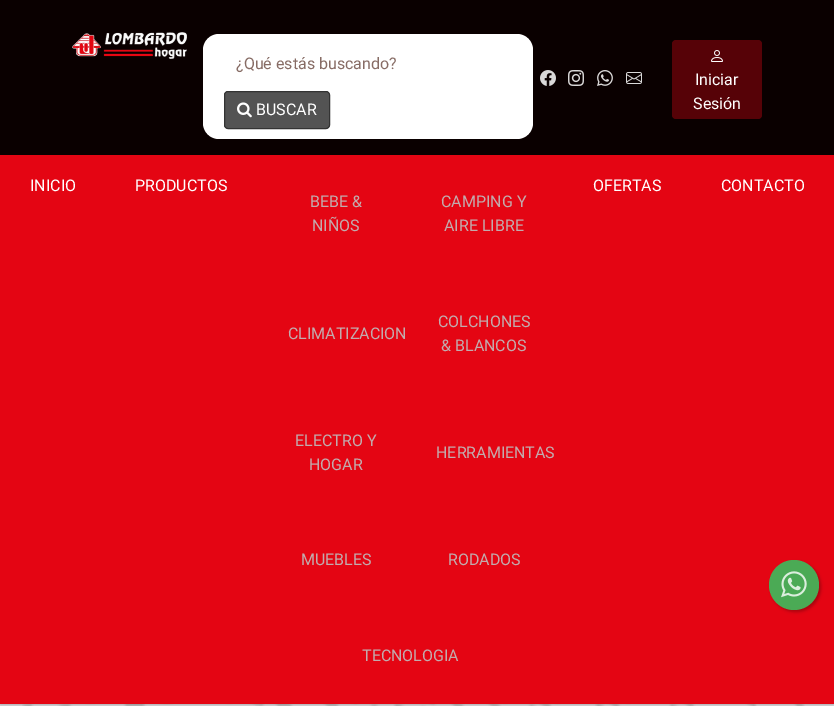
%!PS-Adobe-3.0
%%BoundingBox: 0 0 834 706
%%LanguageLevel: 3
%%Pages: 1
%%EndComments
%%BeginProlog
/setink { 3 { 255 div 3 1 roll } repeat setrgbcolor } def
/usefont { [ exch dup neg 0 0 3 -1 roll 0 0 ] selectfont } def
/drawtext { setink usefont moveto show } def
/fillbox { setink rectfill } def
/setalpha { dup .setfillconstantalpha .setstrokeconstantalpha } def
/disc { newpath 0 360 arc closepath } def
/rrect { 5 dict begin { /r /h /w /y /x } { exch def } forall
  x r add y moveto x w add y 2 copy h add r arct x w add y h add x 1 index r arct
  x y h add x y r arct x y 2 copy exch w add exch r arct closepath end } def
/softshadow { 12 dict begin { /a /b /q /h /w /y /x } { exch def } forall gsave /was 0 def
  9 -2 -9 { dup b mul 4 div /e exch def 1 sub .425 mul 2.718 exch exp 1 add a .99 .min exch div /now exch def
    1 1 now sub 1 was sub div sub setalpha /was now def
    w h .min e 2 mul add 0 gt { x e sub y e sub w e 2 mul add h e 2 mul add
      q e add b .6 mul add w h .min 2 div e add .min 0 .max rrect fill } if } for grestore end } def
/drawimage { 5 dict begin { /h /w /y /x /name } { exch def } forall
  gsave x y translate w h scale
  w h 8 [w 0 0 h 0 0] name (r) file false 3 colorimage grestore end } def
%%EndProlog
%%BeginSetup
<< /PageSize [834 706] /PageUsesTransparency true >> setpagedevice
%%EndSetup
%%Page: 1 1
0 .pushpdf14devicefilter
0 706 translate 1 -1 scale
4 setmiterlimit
0 0 834 706 233 230 229 fillbox
(assets/img9.rgb) 22 704 783 2 drawimage
44 55 73 setink
0 0 834 704 0 2.5 0.54 softshadow
0 0 834 155 10 0 0 fillbox
(assets/img1.rgb) 72 32 115 27 drawimage
255 255 255 setink
203 34 330 105 16 rrect fill
(¿Qué estás buscando?) 236 69 /Roboto-Regular 16 135 108 101 drawtext
83 83 83 setink
224.5 91.5 105 37 3.5 rrect gsave fill grestore
51 51 51 setink
stroke
(assets/img2.rgb) 237 102 15 16 drawimage
(BUSCAR) 256 115 /Roboto-Regular 16 255 255 255 drawtext
(assets/img3.rgb) 540 70 16 16 drawimage
(assets/img4.rgb) 568 70 16 16 drawimage
(assets/img5.rgb) 597 70 16 16 drawimage
(assets/img6.rgb) 626 72 16 12 drawimage
86 2 7 setink
672 40 90 79 4 rrect fill
(assets/img7.rgb) 711 50 12 12 drawimage
(Iniciar) 695 85 /Roboto-Regular 16 255 255 255 drawtext
(Sesión) 693 109 /Roboto-Regular 16 255 255 255 drawtext
0 155 834 549 228 5 19 fillbox
(INICIO) 30 191 /Roboto-Regular 16 255 255 255 drawtext
(PRODUCTOS) 135 191 /Roboto-Regular 16 255 255 255 drawtext
(OFERTAS) 593 191 /Roboto-Regular 16 255 255 255 drawtext
(CONTACTO) 721 191 /Roboto-Regular 16 255 255 255 drawtext
(BEBE &) 310 207 /Roboto-Regular 16 194 171 173 drawtext
(NIÑOS) 312 231 /Roboto-Regular 16 194 171 173 drawtext
(CAMPING Y) 441 207 /Roboto-Regular 16 194 171 173 drawtext
(AIRE LIBRE) 444 231 /Roboto-Regular 16 194 171 173 drawtext
(CLIMATIZACION) 288 339 /Roboto-Regular 16 194 171 173 drawtext
(COLCHONES) 438 327 /Roboto-Regular 16 194 171 173 drawtext
(& BLANCOS) 441 351 /Roboto-Regular 16 194 171 173 drawtext
(ELECTRO Y) 295 446 /Roboto-Regular 16 194 171 173 drawtext
(HOGAR) 309 470 /Roboto-Regular 16 194 171 173 drawtext
(HERRAMIENTAS) 436 458 /Roboto-Regular 16 194 171 173 drawtext
(MUEBLES) 301 565 /Roboto-Regular 16 194 171 173 drawtext
(RODADOS) 448 565 /Roboto-Regular 16 194 171 173 drawtext
(TECNOLOGIA) 362 661 /Roboto-Regular 16 194 171 173 drawtext
46 1 4 setink
771 562 50 50 25 1.5 0.32 softshadow
75 170 85 setink
794 585 25 disc fill
(assets/img8.rgb) 781 571 26 27 drawimage
.poppdf14devicefilter showpage
%%EOF
